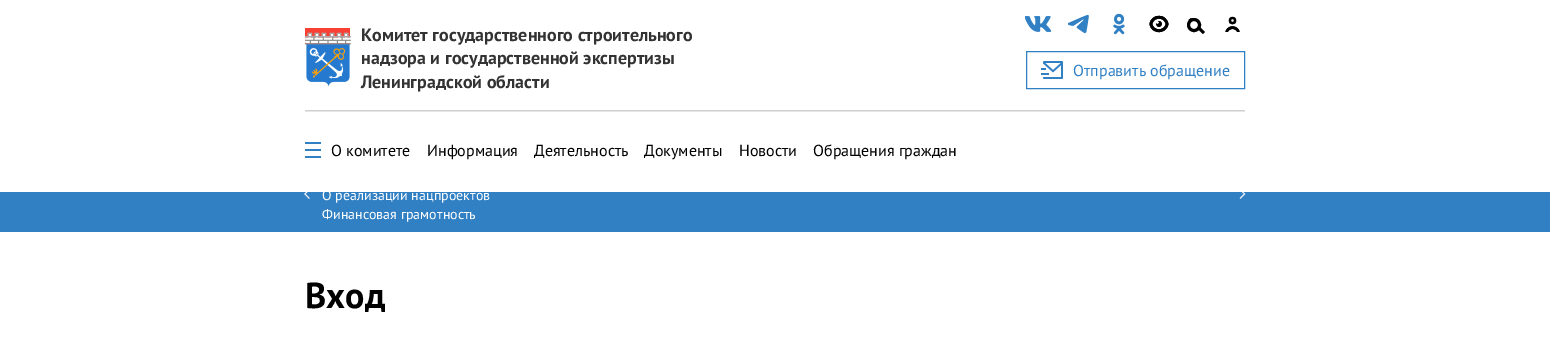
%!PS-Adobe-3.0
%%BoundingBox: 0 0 1550 348
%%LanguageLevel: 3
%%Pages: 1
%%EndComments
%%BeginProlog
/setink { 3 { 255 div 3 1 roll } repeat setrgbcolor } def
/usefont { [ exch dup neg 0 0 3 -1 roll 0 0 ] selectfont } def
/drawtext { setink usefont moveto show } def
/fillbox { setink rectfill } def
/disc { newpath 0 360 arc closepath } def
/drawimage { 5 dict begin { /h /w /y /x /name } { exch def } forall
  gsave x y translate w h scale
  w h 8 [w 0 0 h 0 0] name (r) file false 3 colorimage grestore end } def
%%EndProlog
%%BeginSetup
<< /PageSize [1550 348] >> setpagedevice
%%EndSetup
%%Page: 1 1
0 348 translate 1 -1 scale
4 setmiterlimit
0 0 1550 348 255 255 255 fillbox
(assets/img1.rgb) 305 28 46 59 drawimage
(Комитет государственного строительного) 361 41 /PTSans-Bold 18 51 51 51 drawtext
(надзора и государственной экспертизы) 361 64 /PTSans-Bold 18 51 51 51 drawtext
(Ленинградской области) 361 88 /PTSans-Bold 18 51 51 51 drawtext
(assets/img2.rgb) 1025 16 27 16 drawimage
(assets/img3.rgb) 1068 14 21 20 drawimage
(assets/img4.rgb) 1113 13 12 22 drawimage
(assets/img5.rgb) 1149 15 20 18 drawimage
0 0 0 setink
1191 18 moveto 1205 32 lineto 1203 34 lineto 1188.5 20 lineto closepath fill
255 255 255 setink
1194 25 5.5 disc gsave fill grestore
0 0 0 setink
3 setlinewidth
stroke
(assets/img6.rgb) 1225 16 15 16 drawimage
49 128 196 setink
1 setlinewidth
1026.5 51.5 218 37 rectstroke
(assets/img7.rgb) 1041 61 22 18 drawimage
(Отправить обращение) 1073 76 /PTSans-Regular 16 49 128 196 drawtext
305 111 940 1 230 230 230 fillbox
305 110 940 1 207 207 207 fillbox
305 142 16 2 49 128 196 fillbox
305 149 16 2 49 128 196 fillbox
305 156 16 2 49 128 196 fillbox
(О комитете) 331 156 /PTSans-Regular 16 0 0 0 drawtext
(Информация) 427 156 /PTSans-Regular 16 0 0 0 drawtext
(Деятельность) 534 156 /PTSans-Regular 16 0 0 0 drawtext
(Документы) 644 156 /PTSans-Regular 16 0 0 0 drawtext
(Новости) 739 156 /PTSans-Regular 16 0 0 0 drawtext
(Обращения граждан) 813 156 /PTSans-Regular 16 0 0 0 drawtext
0 192 1550 40 49 128 196 fillbox
(assets/img8.rgb) 304 192 6 7 drawimage
(О реализации нацпроектов) 322 200 /PTSans-Regular 14 255 255 255 drawtext
(Финансовая грамотность) 322 219 /PTSans-Regular 14 255 255 255 drawtext
(assets/img9.rgb) 1239 192 7 7 drawimage
(Вход) 305 308 /PTSans-Bold 36 0 0 0 drawtext
showpage
%%EOF
